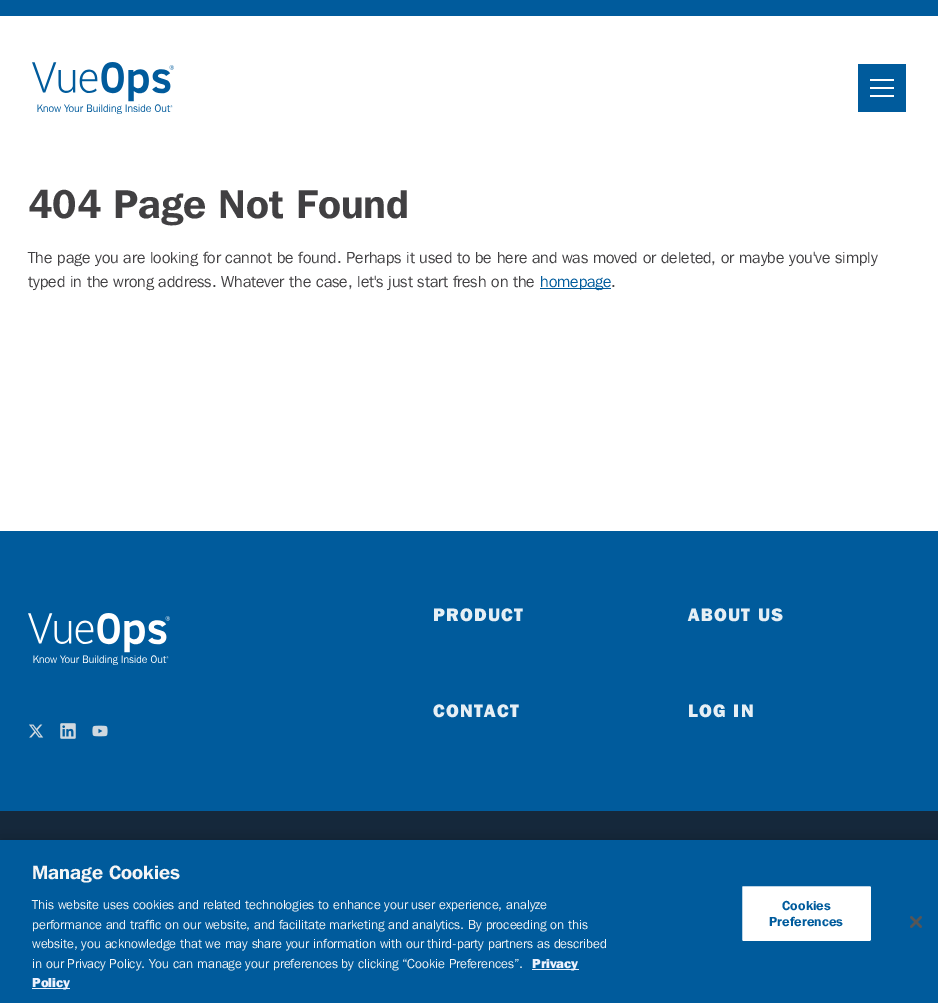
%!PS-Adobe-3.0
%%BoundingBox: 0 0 938 1003
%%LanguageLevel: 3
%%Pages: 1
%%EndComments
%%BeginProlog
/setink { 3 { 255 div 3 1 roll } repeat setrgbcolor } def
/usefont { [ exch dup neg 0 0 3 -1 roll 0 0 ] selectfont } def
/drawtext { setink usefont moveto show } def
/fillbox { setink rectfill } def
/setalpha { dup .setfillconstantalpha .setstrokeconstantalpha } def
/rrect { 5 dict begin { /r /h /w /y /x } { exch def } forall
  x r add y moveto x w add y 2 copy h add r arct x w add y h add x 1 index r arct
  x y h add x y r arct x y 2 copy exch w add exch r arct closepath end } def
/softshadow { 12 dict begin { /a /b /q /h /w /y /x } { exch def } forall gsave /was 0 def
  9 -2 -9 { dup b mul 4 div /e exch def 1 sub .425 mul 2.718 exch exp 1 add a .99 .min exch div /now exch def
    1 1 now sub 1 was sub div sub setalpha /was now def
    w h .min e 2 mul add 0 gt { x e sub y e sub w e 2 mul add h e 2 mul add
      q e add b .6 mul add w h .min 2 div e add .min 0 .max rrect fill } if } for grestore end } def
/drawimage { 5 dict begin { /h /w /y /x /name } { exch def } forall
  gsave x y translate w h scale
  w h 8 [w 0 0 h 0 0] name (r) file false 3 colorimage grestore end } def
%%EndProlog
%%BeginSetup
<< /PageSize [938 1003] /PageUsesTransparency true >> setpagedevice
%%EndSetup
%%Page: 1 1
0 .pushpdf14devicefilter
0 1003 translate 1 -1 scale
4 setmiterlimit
0 0 938 1003 255 255 255 fillbox
0 0 938 16 0 91 156 fillbox
(assets/img1.rgb) 32 62 142 52 drawimage
858 64 48 48 0 91 156 fillbox
870 79 24 2 255 255 255 fillbox
870 87 24 2 255 255 255 fillbox
870 95 24 2 255 255 255 fillbox
(404 Page Not Found) 28 218 /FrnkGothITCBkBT-Bold 40 65 64 66 drawtext
(The page you are looking for cannot be found. Perhaps it used to be here and was moved or deleted, or maybe you've simply) 28 263 /FrnkGothITCBkBT-Regular 16 65 64 66 drawtext
(typed in the wrong address. Whatever the case, let's just start fresh on the) 28 287 /FrnkGothITCBkBT-Regular 16 65 64 66 drawtext
540 288 71 1 0 91 156 fillbox
(homepage) 540 287 /FrnkGothITCBkBT-Regular 16 0 91 156 drawtext
(.) 611 287 /FrnkGothITCBkBT-Regular 16 65 64 66 drawtext
0 531 938 280 0 91 156 fillbox
(assets/img2.rgb) 28 613 142 52 drawimage
(assets/img3.rgb) 29 724 15 14 drawimage
(assets/img4.rgb) 60 723 16 16 drawimage
(assets/img5.rgb) 92 725 16 12 drawimage
/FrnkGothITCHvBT-Black 18 usefont
230 239 245 setink
433 621 moveto 1.25 0 (PRODUCT) ashow
688 621 moveto 1.25 0 (ABOUT US) ashow
433 717 moveto 1.25 0 (CONTACT) ashow
688 717 moveto 1.25 0 (LOG IN) ashow
0 811 938 29 21 40 59 fillbox
0 0 0 setink
0 840 938 163 0 9 0.2 softshadow
0 840 938 163 0 91 156 fillbox
(Manage Cookies) 32 879 /FrnkGothITCBkBT-Bold 19.25 245 245 245 drawtext
(This website uses cookies and related technologies to enhance your user experience, analyze) 32 909 /FrnkGothITCBkBT-Regular 13 245 245 245 drawtext
(performance and traffic on our website, and facilitate marketing and analytics. By proceeding on this) 32 929 /FrnkGothITCBkBT-Regular 13 245 245 245 drawtext
(website, you acknowledge that we may share your information with our third-party partners as described) 32 948 /FrnkGothITCBkBT-Regular 13 245 245 245 drawtext
(in our Privacy Policy. You can manage your preferences by clicking “Cookie Preferences”.) 32 968 /FrnkGothITCBkBT-Regular 13 245 245 245 drawtext
532 969 47 1 236 241 253 fillbox
(Privacy) 532 968 /FrnkGothITCHvBT-Black 13 236 241 253 drawtext
32 988 38 1 236 241 253 fillbox
(Policy) 32 987 /FrnkGothITCHvBT-Black 13 236 241 253 drawtext
255 255 255 setink
741.5 885.5 130 56 1.5 rrect gsave fill grestore
0 91 156 setink
stroke
/FrnkGothITCBkBT-Bold 13 usefont
782 910 moveto 0.1 0 (Cookies) ashow
769 926 moveto 0.1 0 (Preferences) ashow
(assets/img6.rgb) 910 916 12 12 drawimage
.poppdf14devicefilter showpage
%%EOF
